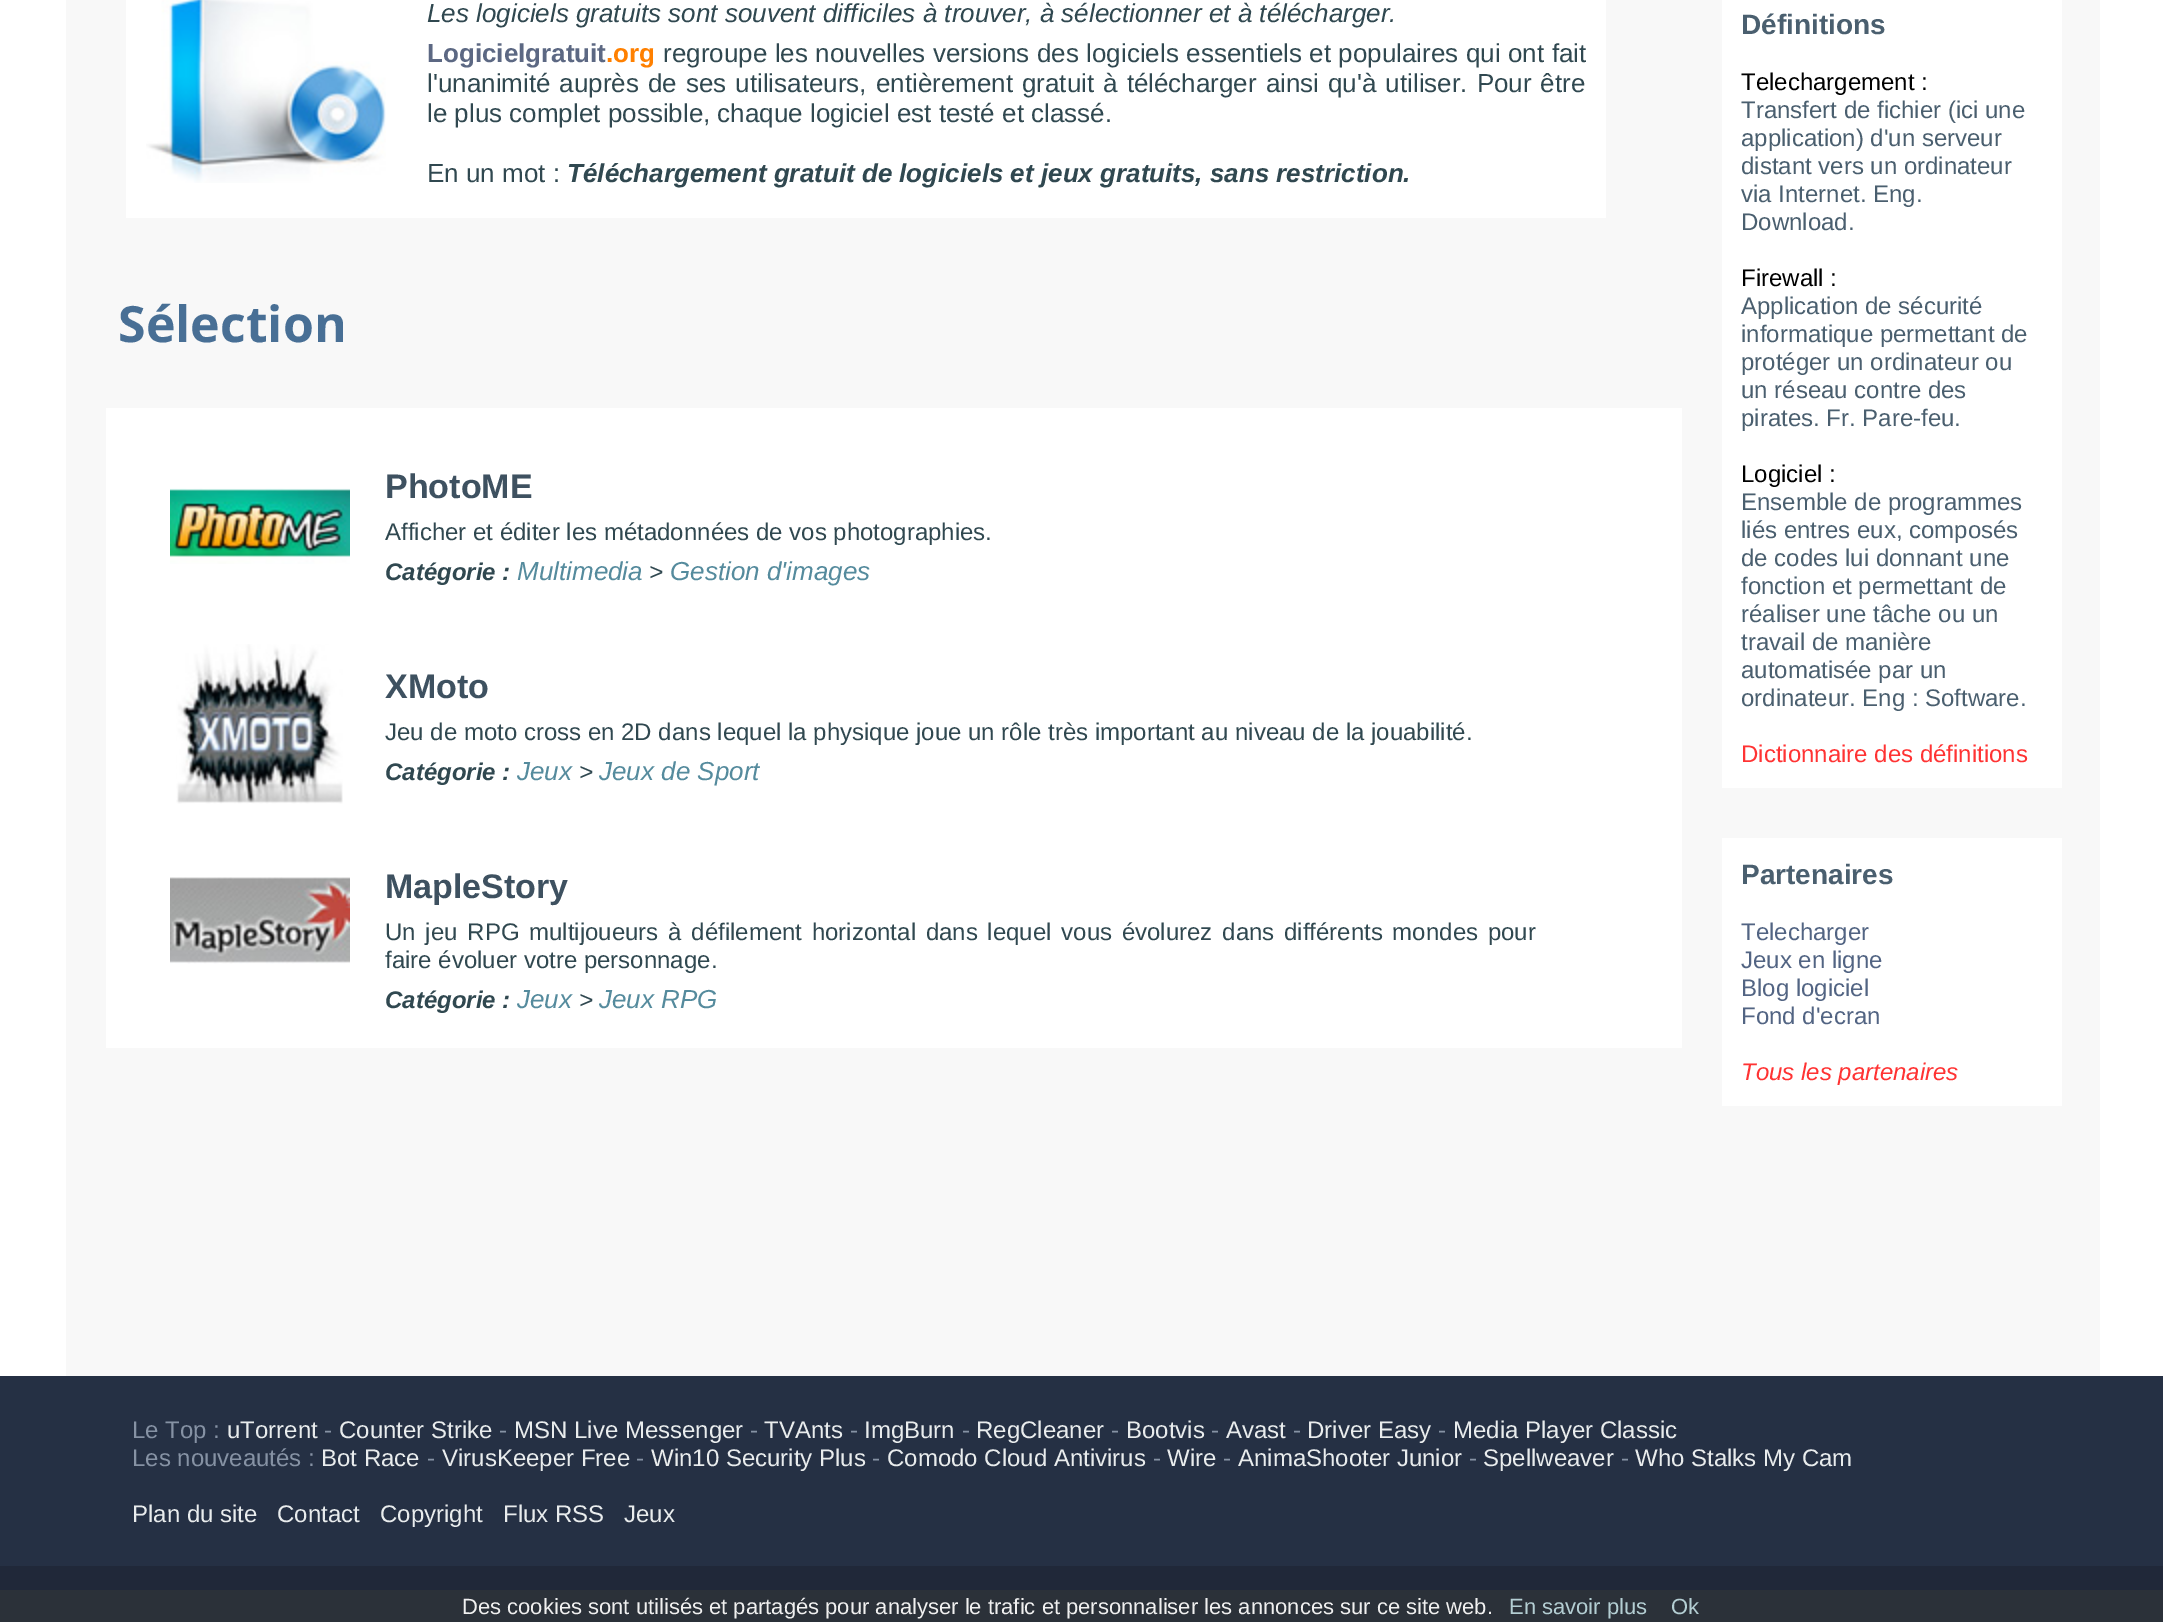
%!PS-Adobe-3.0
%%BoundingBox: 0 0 2163 1622
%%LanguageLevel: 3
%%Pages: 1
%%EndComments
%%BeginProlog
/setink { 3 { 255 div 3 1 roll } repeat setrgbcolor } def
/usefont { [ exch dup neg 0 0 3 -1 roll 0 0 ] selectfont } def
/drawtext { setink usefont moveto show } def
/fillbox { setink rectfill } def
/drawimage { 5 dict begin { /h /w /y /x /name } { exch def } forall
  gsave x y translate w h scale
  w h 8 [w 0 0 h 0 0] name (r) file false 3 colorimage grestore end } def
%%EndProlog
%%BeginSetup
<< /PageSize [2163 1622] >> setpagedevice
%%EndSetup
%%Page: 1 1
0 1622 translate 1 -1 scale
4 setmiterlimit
0 0 2163 1622 255 255 255 fillbox
66 0 2034 1376 248 248 248 fillbox
126 0 1480 218 255 255 255 fillbox
(assets/img1.rgb) 146 0 240 183 drawimage
(Les logiciels gratuits sont souvent difficiles à trouver, à sélectionner et à télécharger.) 427 22 /LiberationSans-Italic 26 48 72 80 drawtext
(Logicielgratuit) 427 62 /LiberationSans-Bold 26 92 104 131 drawtext
(.org) 606 62 /LiberationSans-Bold 26 255 128 0 drawtext
/LiberationSans-Regular 26 usefont
48 72 80 setink
663 62 moveto 0.25 0 32 (regroupe les nouvelles versions des logiciels essentiels et populaires qui ont fait) widthshow
427 92 moveto 1.75 0 32 (l'unanimité auprès de ses utilisateurs, entièrement gratuit à télécharger ainsi qu'à utiliser. Pour être) widthshow
(le plus complet possible, chaque logiciel est testé et classé.) 427 122 /LiberationSans-Regular 26 48 72 80 drawtext
(En un mot :) 427 182 /LiberationSans-Regular 26 48 72 80 drawtext
(Téléchargement gratuit de logiciels et jeux gratuits, sans restriction.) 567 182 /LiberationSans-BoldItalic 26 48 72 80 drawtext
(Sélection) 118 342 /OpenSans-Bold 50 72 111 149 drawtext
106 408 1576 640 255 255 255 fillbox
(assets/img2.rgb) 170 488 180 76 drawimage
(PhotoME) 385 498 /LiberationSans-Bold 34 62 81 96 drawtext
(Afficher et éditer les métadonnées de vos photographies.) 385 540 /LiberationSans-Regular 24 48 72 80 drawtext
(Catégorie :) 385 580 /LiberationSans-BoldItalic 24 48 72 80 drawtext
(Multimedia) 517 580 /LiberationSans-Italic 26 85 139 157 drawtext
(>) 649 580 /LiberationSans-Italic 24 48 72 80 drawtext
(Gestion d'images) 670 580 /LiberationSans-Italic 26 85 139 157 drawtext
(assets/img3.rgb) 176 644 167 160 drawimage
(XMoto) 385 698 /LiberationSans-Bold 34 62 81 96 drawtext
(Jeu de moto cross en 2D dans lequel la physique joue un rôle très important au niveau de la jouabilité.) 385 740 /LiberationSans-Regular 24 48 72 80 drawtext
(Catégorie :) 385 780 /LiberationSans-BoldItalic 24 48 72 80 drawtext
(Jeux) 517 780 /LiberationSans-Italic 26 85 139 157 drawtext
(>) 579 780 /LiberationSans-Italic 24 48 72 80 drawtext
(Jeux de Sport) 599 780 /LiberationSans-Italic 26 85 139 157 drawtext
(assets/img4.rgb) 170 877 180 87 drawimage
(MapleStory) 385 898 /LiberationSans-Bold 34 62 81 96 drawtext
/LiberationSans-Regular 24 usefont
48 72 80 setink
385 940 moveto 3.1 0 32 (Un jeu RPG multijoueurs à défilement horizontal dans lequel vous évolurez dans différents mondes pour) widthshow
(faire évoluer votre personnage.) 385 968 /LiberationSans-Regular 24 48 72 80 drawtext
(Catégorie :) 385 1008 /LiberationSans-BoldItalic 24 48 72 80 drawtext
(Jeux) 517 1008 /LiberationSans-Italic 26 85 139 157 drawtext
(>) 579 1008 /LiberationSans-Italic 24 48 72 80 drawtext
(Jeux RPG) 599 1008 /LiberationSans-Italic 26 85 139 157 drawtext
1722 0 340 788 255 255 255 fillbox
(Définitions) 1741 34 /LiberationSans-Bold 28 74 95 111 drawtext
(Telechargement :) 1741 90 /LiberationSans-Regular 24 0 0 0 drawtext
(Transfert de fichier \(ici une) 1741 118 /LiberationSans-Regular 24 74 95 111 drawtext
(application\) d'un serveur) 1741 146 /LiberationSans-Regular 24 74 95 111 drawtext
(distant vers un ordinateur) 1741 174 /LiberationSans-Regular 24 74 95 111 drawtext
(via Internet. Eng.) 1741 202 /LiberationSans-Regular 24 74 95 111 drawtext
(Download.) 1741 230 /LiberationSans-Regular 24 74 95 111 drawtext
(Firewall :) 1741 286 /LiberationSans-Regular 24 0 0 0 drawtext
(Application de sécurité) 1741 314 /LiberationSans-Regular 24 74 95 111 drawtext
(informatique permettant de) 1741 342 /LiberationSans-Regular 24 74 95 111 drawtext
(protéger un ordinateur ou) 1741 370 /LiberationSans-Regular 24 74 95 111 drawtext
(un réseau contre des) 1741 398 /LiberationSans-Regular 24 74 95 111 drawtext
(pirates. Fr. Pare-feu.) 1741 426 /LiberationSans-Regular 24 74 95 111 drawtext
(Logiciel :) 1741 482 /LiberationSans-Regular 24 0 0 0 drawtext
(Ensemble de programmes) 1741 510 /LiberationSans-Regular 24 74 95 111 drawtext
(liés entres eux, composés) 1741 538 /LiberationSans-Regular 24 74 95 111 drawtext
(de codes lui donnant une) 1741 566 /LiberationSans-Regular 24 74 95 111 drawtext
(fonction et permettant de) 1741 594 /LiberationSans-Regular 24 74 95 111 drawtext
(réaliser une tâche ou un) 1741 622 /LiberationSans-Regular 24 74 95 111 drawtext
(travail de manière) 1741 650 /LiberationSans-Regular 24 74 95 111 drawtext
(automatisée par un) 1741 678 /LiberationSans-Regular 24 74 95 111 drawtext
(ordinateur. Eng : Software.) 1741 706 /LiberationSans-Regular 24 74 95 111 drawtext
(Dictionnaire des définitions) 1741 762 /LiberationSans-Regular 24 255 51 51 drawtext
1722 838 340 268 255 255 255 fillbox
(Partenaires) 1741 884 /LiberationSans-Bold 28 74 95 111 drawtext
(Telecharger) 1741 940 /LiberationSans-Regular 24 82 100 131 drawtext
(Jeux en ligne) 1741 968 /LiberationSans-Regular 24 82 100 131 drawtext
(Blog logiciel) 1741 996 /LiberationSans-Regular 24 82 100 131 drawtext
(Fond d'ecran) 1741 1024 /LiberationSans-Regular 24 82 100 131 drawtext
(Tous les partenaires) 1741 1080 /LiberationSans-Italic 24 255 51 51 drawtext
0 1376 2163 190 37 48 68 fillbox
(Le Top :) 132 1438 /LiberationSans-Regular 24 134 146 164 drawtext
(uTorrent) 227 1438 /LiberationSans-Regular 24 233 236 237 drawtext
(-) 324 1438 /LiberationSans-Regular 24 134 146 164 drawtext
(Counter Strike) 339 1438 /LiberationSans-Regular 24 233 236 237 drawtext
(-) 499 1438 /LiberationSans-Regular 24 134 146 164 drawtext
(MSN Live Messenger) 514 1438 /LiberationSans-Regular 24 233 236 237 drawtext
(-) 750 1438 /LiberationSans-Regular 24 134 146 164 drawtext
(TVAnts) 764 1438 /LiberationSans-Regular 24 233 236 237 drawtext
(-) 850 1438 /LiberationSans-Regular 24 134 146 164 drawtext
(ImgBurn) 864 1438 /LiberationSans-Regular 24 233 236 237 drawtext
(-) 962 1438 /LiberationSans-Regular 24 134 146 164 drawtext
(RegCleaner) 976 1438 /LiberationSans-Regular 24 233 236 237 drawtext
(-) 1111 1438 /LiberationSans-Regular 24 134 146 164 drawtext
(Bootvis) 1126 1438 /LiberationSans-Regular 24 233 236 237 drawtext
(-) 1211 1438 /LiberationSans-Regular 24 134 146 164 drawtext
(Avast) 1226 1438 /LiberationSans-Regular 24 233 236 237 drawtext
(-) 1293 1438 /LiberationSans-Regular 24 134 146 164 drawtext
(Driver Easy) 1307 1438 /LiberationSans-Regular 24 233 236 237 drawtext
(-) 1438 1438 /LiberationSans-Regular 24 134 146 164 drawtext
(Media Player Classic) 1453 1438 /LiberationSans-Regular 24 233 236 237 drawtext
(Les nouveautés :) 132 1466 /LiberationSans-Regular 24 134 146 164 drawtext
(Bot Race) 321 1466 /LiberationSans-Regular 24 233 236 237 drawtext
(-) 427 1466 /LiberationSans-Regular 24 134 146 164 drawtext
(VirusKeeper Free) 442 1466 /LiberationSans-Regular 24 233 236 237 drawtext
(-) 636 1466 /LiberationSans-Regular 24 134 146 164 drawtext
(Win10 Security Plus) 651 1466 /LiberationSans-Regular 24 233 236 237 drawtext
(-) 872 1466 /LiberationSans-Regular 24 134 146 164 drawtext
(Comodo Cloud Antivirus) 887 1466 /LiberationSans-Regular 24 233 236 237 drawtext
(-) 1153 1466 /LiberationSans-Regular 24 134 146 164 drawtext
(Wire) 1167 1466 /LiberationSans-Regular 24 233 236 237 drawtext
(-) 1223 1466 /LiberationSans-Regular 24 134 146 164 drawtext
(AnimaShooter Junior) 1238 1466 /LiberationSans-Regular 24 233 236 237 drawtext
(-) 1469 1466 /LiberationSans-Regular 24 134 146 164 drawtext
(Spellweaver) 1483 1466 /LiberationSans-Regular 24 233 236 237 drawtext
(-) 1621 1466 /LiberationSans-Regular 24 134 146 164 drawtext
(Who Stalks My Cam) 1635 1466 /LiberationSans-Regular 24 233 236 237 drawtext
(Plan du site) 132 1522 /LiberationSans-Regular 24 233 236 237 drawtext
(Contact) 277 1522 /LiberationSans-Regular 24 233 236 237 drawtext
(Copyright) 380 1522 /LiberationSans-Regular 24 233 236 237 drawtext
(Flux RSS) 503 1522 /LiberationSans-Regular 24 233 236 237 drawtext
(Jeux) 624 1522 /LiberationSans-Regular 24 233 236 237 drawtext
0 1566 2163 24 32 40 57 fillbox
0 1590 2163 32 43 49 57 fillbox
(Des cookies sont utilisés et partagés pour analyser le trafic et personnaliser les annonces sur ce site web.) 462 1614 /LiberationSans-Regular 22 240 240 240 drawtext
(En savoir plus) 1509 1614 /LiberationSans-Regular 22 180 206 211 drawtext
(Ok) 1671 1614 /LiberationSans-Regular 22 180 206 211 drawtext
showpage
%%EOF
